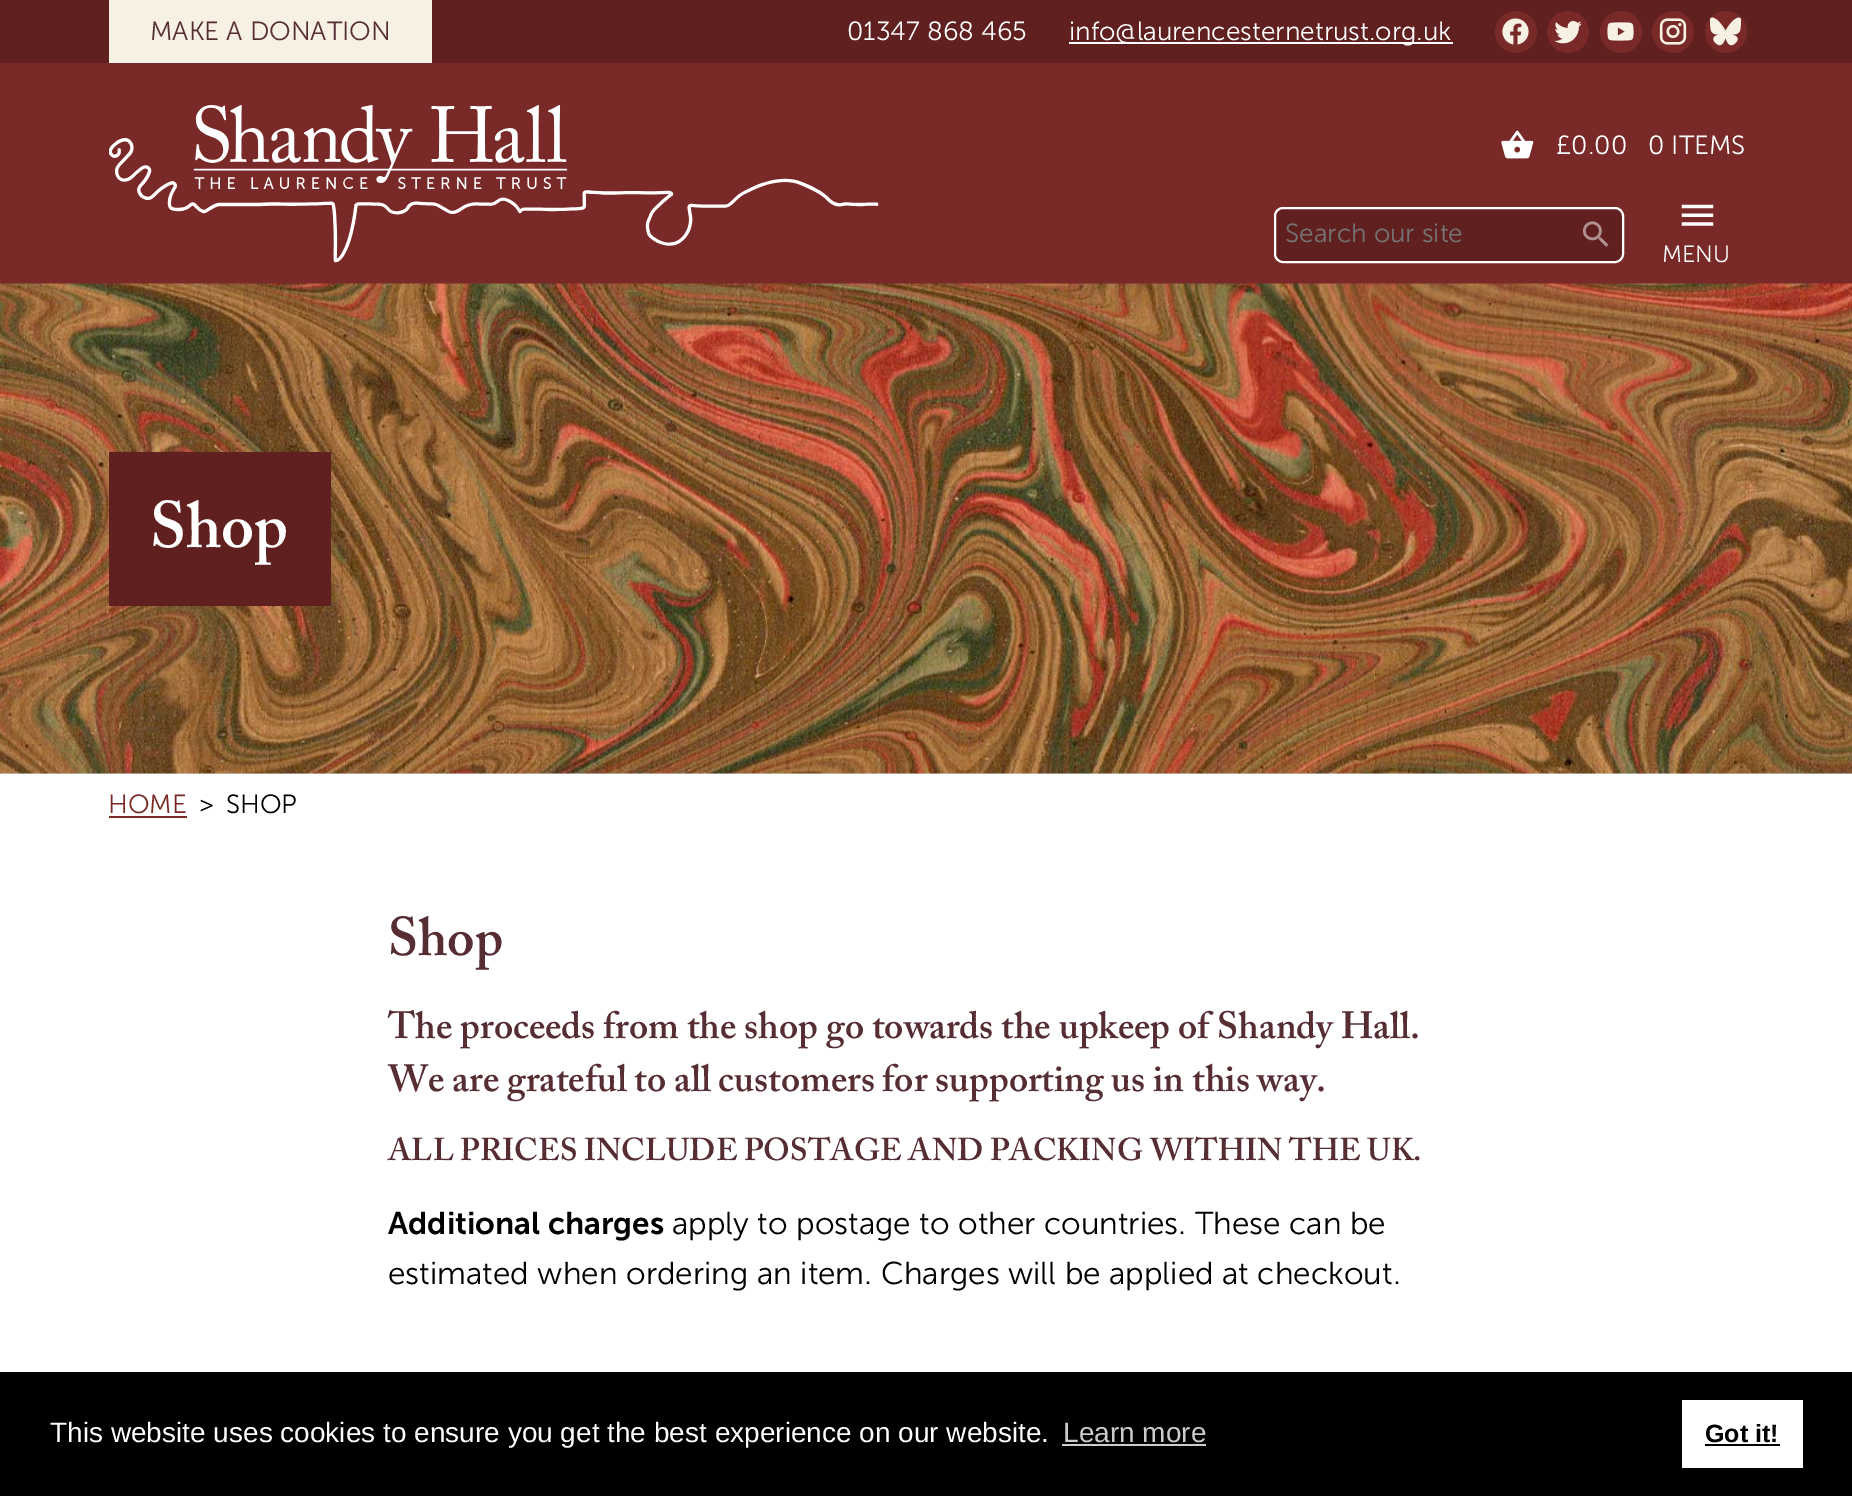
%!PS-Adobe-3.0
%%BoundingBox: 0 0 1852 1496
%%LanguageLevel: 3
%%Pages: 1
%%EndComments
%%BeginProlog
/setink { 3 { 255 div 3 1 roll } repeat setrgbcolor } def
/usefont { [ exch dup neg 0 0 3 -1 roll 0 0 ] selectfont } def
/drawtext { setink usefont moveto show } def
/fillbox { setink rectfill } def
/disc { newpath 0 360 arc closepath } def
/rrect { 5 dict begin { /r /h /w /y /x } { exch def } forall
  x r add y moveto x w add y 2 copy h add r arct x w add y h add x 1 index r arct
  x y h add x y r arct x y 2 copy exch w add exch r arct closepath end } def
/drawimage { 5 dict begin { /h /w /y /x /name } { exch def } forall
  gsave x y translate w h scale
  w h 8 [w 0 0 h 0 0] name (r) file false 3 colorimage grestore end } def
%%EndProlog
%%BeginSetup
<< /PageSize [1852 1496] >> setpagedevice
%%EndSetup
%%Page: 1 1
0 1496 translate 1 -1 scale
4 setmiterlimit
0 0 1852 1496 255 255 255 fillbox
0 0 1852 63 96 32 32 fillbox
109 0 323 63 247 241 227 fillbox
(MAKE A DONATION) 150 40 /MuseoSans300-Light 26.25 85 45 51 drawtext
(01347 868 465) 847 40 /MuseoSans300-Light 26.25 255 255 255 drawtext
1069 42 384 2 255 255 255 fillbox
(info@laurencesternetrust.org.uk) 1069 40 /MuseoSans300-Light 26.25 255 255 255 drawtext
122 41 41 setink
1516 32 21 disc fill
(assets/img1.rgb) 1502 18 27 27 drawimage
1568 32 21 disc fill
(assets/img2.rgb) 1554 21 28 23 drawimage
1621 32 21 disc fill
(assets/img3.rgb) 1607 22 27 19 drawimage
1673 32 21 disc fill
(assets/img4.rgb) 1659 18 28 27 drawimage
1726 32 21 disc fill
(assets/img5.rgb) 1710 17 31 29 drawimage
0 63 1852 221 122 41 41 fillbox
(assets/img6.rgb) 109 105 770 158 drawimage
(assets/img7.rgb) 1501 130 33 29 drawimage
(£0.00) 1556 154 /MuseoSans300-Light 26.25 255 255 255 drawtext
(0 ITEMS) 1648 154 /MuseoSans300-Light 26.25 255 255 255 drawtext
96 32 32 setink
1275 208 348 54 8 rrect gsave fill grestore
255 255 255 setink
2 setlinewidth
stroke
(Search our site) 1285 242 /MuseoSans300-Light 26.25 117 117 117 drawtext
(assets/img8.rgb) 1582 221 27 26 drawimage
(assets/img9.rgb) 1681 204 33 22 drawimage
(MENU) 1662 262 /MuseoSans300-Light 23.5 255 255 255 drawtext
0 773 1852 1 230 230 230 fillbox
(assets/img10.rgb) 0 283 1852 491 drawimage
109 452 222 154 96 32 32 fillbox
(Shop) 150 547 /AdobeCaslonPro-SemiBold 65 255 255 255 drawtext
(HOME) 108 813 /MuseoSans300-Light 26.25 122 41 41 drawtext
109 816 78 2 122 41 41 fillbox
(>) 199 813 /MuseoSans300-Light 26.25 0 0 0 drawtext
(SHOP) 226 813 /MuseoSans300-Light 26.25 0 0 0 drawtext
(Shop) 388 955 /AdobeCaslonPro-SemiBold 54 85 45 51 drawtext
(The proceeds from the shop go towards the upkeep of Shandy Hall.) 388 1038 /AdobeCaslonPro-SemiBold 37.8 85 45 51 drawtext
(We are grateful to all customers for supporting us in this way.) 388 1091 /AdobeCaslonPro-SemiBold 37.8 85 45 51 drawtext
(ALL PRICES INCLUDE POSTAGE AND PACKING WITHIN THE UK.) 388 1160 /AdobeCaslonPro-SemiBold 31.5 85 45 51 drawtext
(Additional charges) 388 1234 /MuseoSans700-SemiBold 31.5 0 0 0 drawtext
(apply to postage to other countries. These can be) 672 1234 /MuseoSans300-Light 31.5 0 0 0 drawtext
(estimated when ordering an item. Charges will be applied at checkout.) 388 1284 /MuseoSans300-Light 31.5 0 0 0 drawtext
0 1372 1852 124 0 0 0 fillbox
(This website uses cookies to ensure you get the best experience on our website.) 50 1442 /LiberationSans-Regular 28 255 255 255 drawtext
(Learn more) 1063 1442 /LiberationSans-Regular 28 204 204 204 drawtext
1062 1444 144 2 204 204 204 fillbox
1682 1400 121 68 255 255 255 fillbox
(Got it!) 1705 1442 /LiberationSans-Bold 25 0 0 0 drawtext
1705 1444 75 2 0 0 0 fillbox
showpage
%%EOF
